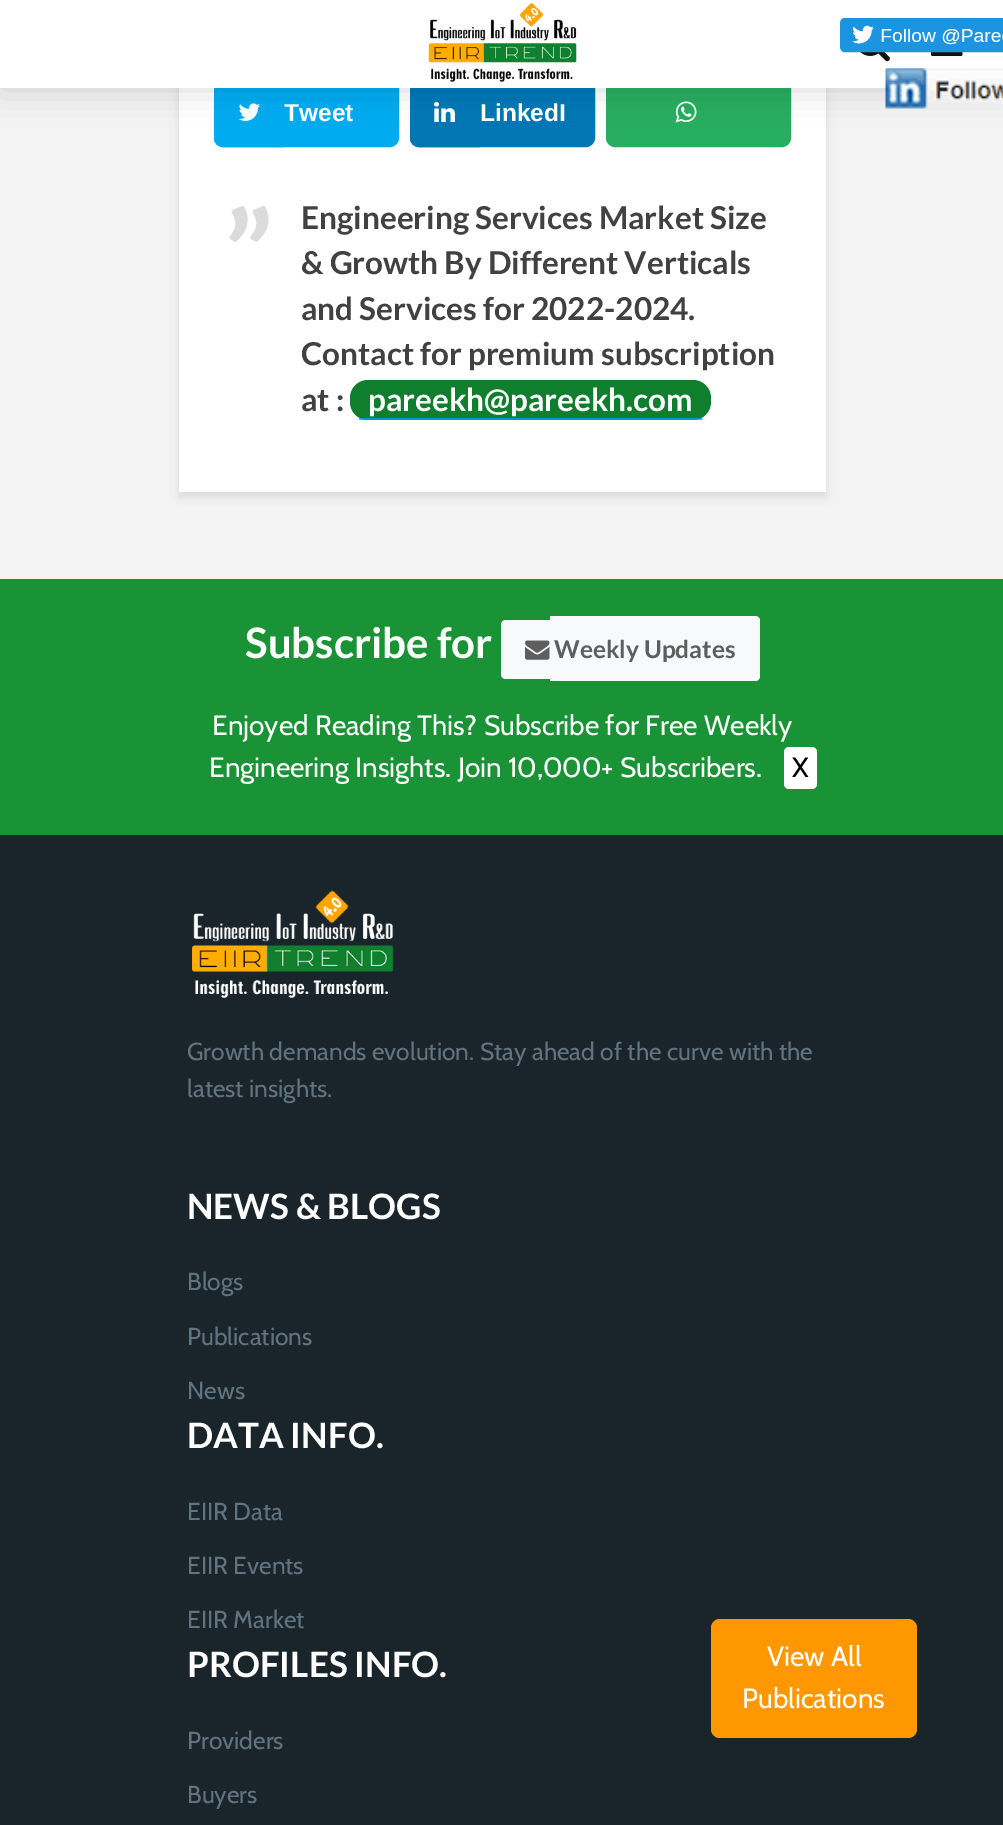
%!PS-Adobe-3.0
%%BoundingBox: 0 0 1003 1825
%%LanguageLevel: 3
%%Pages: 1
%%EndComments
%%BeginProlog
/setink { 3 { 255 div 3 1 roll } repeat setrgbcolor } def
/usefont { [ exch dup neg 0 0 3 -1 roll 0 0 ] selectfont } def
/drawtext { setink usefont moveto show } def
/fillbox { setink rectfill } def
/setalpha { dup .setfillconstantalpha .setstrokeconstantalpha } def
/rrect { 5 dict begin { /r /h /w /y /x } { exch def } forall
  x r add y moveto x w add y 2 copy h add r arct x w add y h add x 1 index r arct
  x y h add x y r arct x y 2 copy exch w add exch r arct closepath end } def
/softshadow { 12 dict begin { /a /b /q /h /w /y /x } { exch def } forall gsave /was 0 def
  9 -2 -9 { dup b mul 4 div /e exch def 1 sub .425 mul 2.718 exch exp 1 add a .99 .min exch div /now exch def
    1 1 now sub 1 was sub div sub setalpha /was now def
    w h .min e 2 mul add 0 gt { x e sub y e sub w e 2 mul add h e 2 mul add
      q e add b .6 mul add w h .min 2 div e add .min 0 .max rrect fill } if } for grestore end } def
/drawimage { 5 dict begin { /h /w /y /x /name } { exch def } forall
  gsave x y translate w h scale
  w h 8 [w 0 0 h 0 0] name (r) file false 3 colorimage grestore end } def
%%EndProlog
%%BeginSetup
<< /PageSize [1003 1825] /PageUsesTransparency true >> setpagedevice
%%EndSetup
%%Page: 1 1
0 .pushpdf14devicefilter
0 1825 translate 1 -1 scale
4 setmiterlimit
0 0 1003 1825 243 243 243 fillbox
0 1 1 setink
179 -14 647 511 0 4.5 0.1 softshadow
179 88 647 404 255 255 255 fillbox
0 171 240 setink
216 79 181 66 7 rrect gsave fill grestore
4 setlinewidth
stroke
(Tweet) 284 121 /LiberationSans-Bold 24.5 255 255 255 drawtext
0 171 240 setink
223 79 moveto 282 79 lineto 282 145 lineto 223 145 lineto 219 145 216 142 216 138 curveto 216 86 lineto 216 82 219 79 223 79 curveto closepath gsave fill grestore
stroke
(assets/img6.rgb) 238 103 22 18 drawimage
0 119 181 setink
412 79 181 66 7 rrect gsave fill grestore
stroke
419 79 moveto 478 79 lineto 478 145 lineto 419 145 lineto 415 145 412 142 412 138 curveto 412 86 lineto 412 82 415 79 419 79 curveto closepath gsave fill grestore
stroke
(assets/img7.rgb) 434 102 21 20 drawimage
39 174 96 setink
608 79 181 66 7 rrect gsave fill grestore
stroke
(assets/img8.rgb) 675 101 22 22 drawimage
0 0 0 setink
0 0 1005 88 0 17.5 0.15 softshadow
0 0 1003 88 255 255 255 fillbox
(assets/img1.rgb) 428 2 149 80 drawimage
(assets/img2.rgb) 860 52 30 10 drawimage
(assets/img3.rgb) 931 52 32 4 drawimage
(assets/img4.rgb) 840 18 163 35 drawimage
(assets/img5.rgb) 885 68 118 41 drawimage
(LinkedI) 480 121 /LiberationSans-Bold 24.5 255 255 255 drawtext
(”) 224 302 /Lato-Bold 126 219 219 219 drawtext
(Engineering Services Market Size) 301 229 /Lato-Bold 31.5 65 65 65 drawtext
(& Growth By Different Verticals) 301 274 /Lato-Bold 31.5 65 65 65 drawtext
(and Services for 2022-2024.) 301 320 /Lato-Bold 31.5 65 65 65 drawtext
(Contact for premium subscription) 301 365 /Lato-Bold 31.5 65 65 65 drawtext
(at :) 301 411 /Lato-Bold 31.5 65 65 65 drawtext
16 127 45 setink
350 380 361 40 18 rrect fill
(pareekh@pareekh.com) 368 411 /Lato-Bold 31.5 255 255 255 drawtext
0.8 setalpha
359 418 343 2 0 156 255 fillbox
1 setalpha
0 579 1003 256 25 147 53 fillbox
(Subscribe for) 245 658 /Lato-Bold 42 255 255 255 drawtext
248 249 250 setink
506 620 moveto 550 620 lineto 550 679 lineto 506 679 lineto 503 679 501 677 501 674 curveto 501 625 lineto 501 622 503 620 506 620 curveto closepath fill
550 616 moveto 755 616 lineto 758 616 760 618 760 621 curveto 760 676 lineto 760 679 758 681 755 681 curveto 550 681 lineto closepath fill
(assets/img9.rgb) 525 640 25 20 drawimage
(Weekly Updates) 554 658 /Lato-Bold 24.5 94 94 94 drawtext
(Enjoyed Reading This? Subscribe for Free Weekly) 212 735 /Cabin-Regular 28 255 255 255 drawtext
(Engineering Insights. Join 10,000+ Subscribers.) 209 777 /Cabin-Regular 28 255 255 255 drawtext
784 747 33 42 5 rrect fill
(X) 792 777 /Cabin-Regular 28 0 0 0 drawtext
0 835 1003 990 25 36 43 fillbox
(assets/img10.rgb) 192 890 202 108 drawimage
(Growth demands evolution. Stay ahead of the curve with the) 187 1060 /Cabin-Regular 24.5 96 115 127 drawtext
(latest insights.) 187 1097 /Cabin-Regular 24.5 96 115 127 drawtext
(NEWS & BLOGS) 187 1219 /Lato-Bold 35 255 255 255 drawtext
(Blogs) 187 1290 /Cabin-Regular 24.5 96 115 127 drawtext
(Publications) 187 1345 /Cabin-Regular 24.5 96 115 127 drawtext
(News) 187 1399 /Cabin-Regular 24.5 96 115 127 drawtext
(DATA INFO.) 187 1448 /Lato-Bold 35 255 255 255 drawtext
(EIIR Data) 187 1520 /Cabin-Regular 24.5 96 115 127 drawtext
(EIIR Events) 187 1574 /Cabin-Regular 24.5 96 115 127 drawtext
(EIIR Market) 187 1628 /Cabin-Regular 24.5 96 115 127 drawtext
(PROFILES INFO.) 187 1677 /Lato-Bold 35 255 255 255 drawtext
(Providers) 187 1749 /Cabin-Regular 24.5 96 115 127 drawtext
(Buyers) 187 1803 /Cabin-Regular 24.5 96 115 127 drawtext
255 152 0 setink
711 1619 206 119 9 rrect fill
(View All) 767 1666 /Cabin-Regular 28 255 255 255 drawtext
(Publications) 742 1708 /Cabin-Regular 28 255 255 255 drawtext
.poppdf14devicefilter showpage
%%EOF
